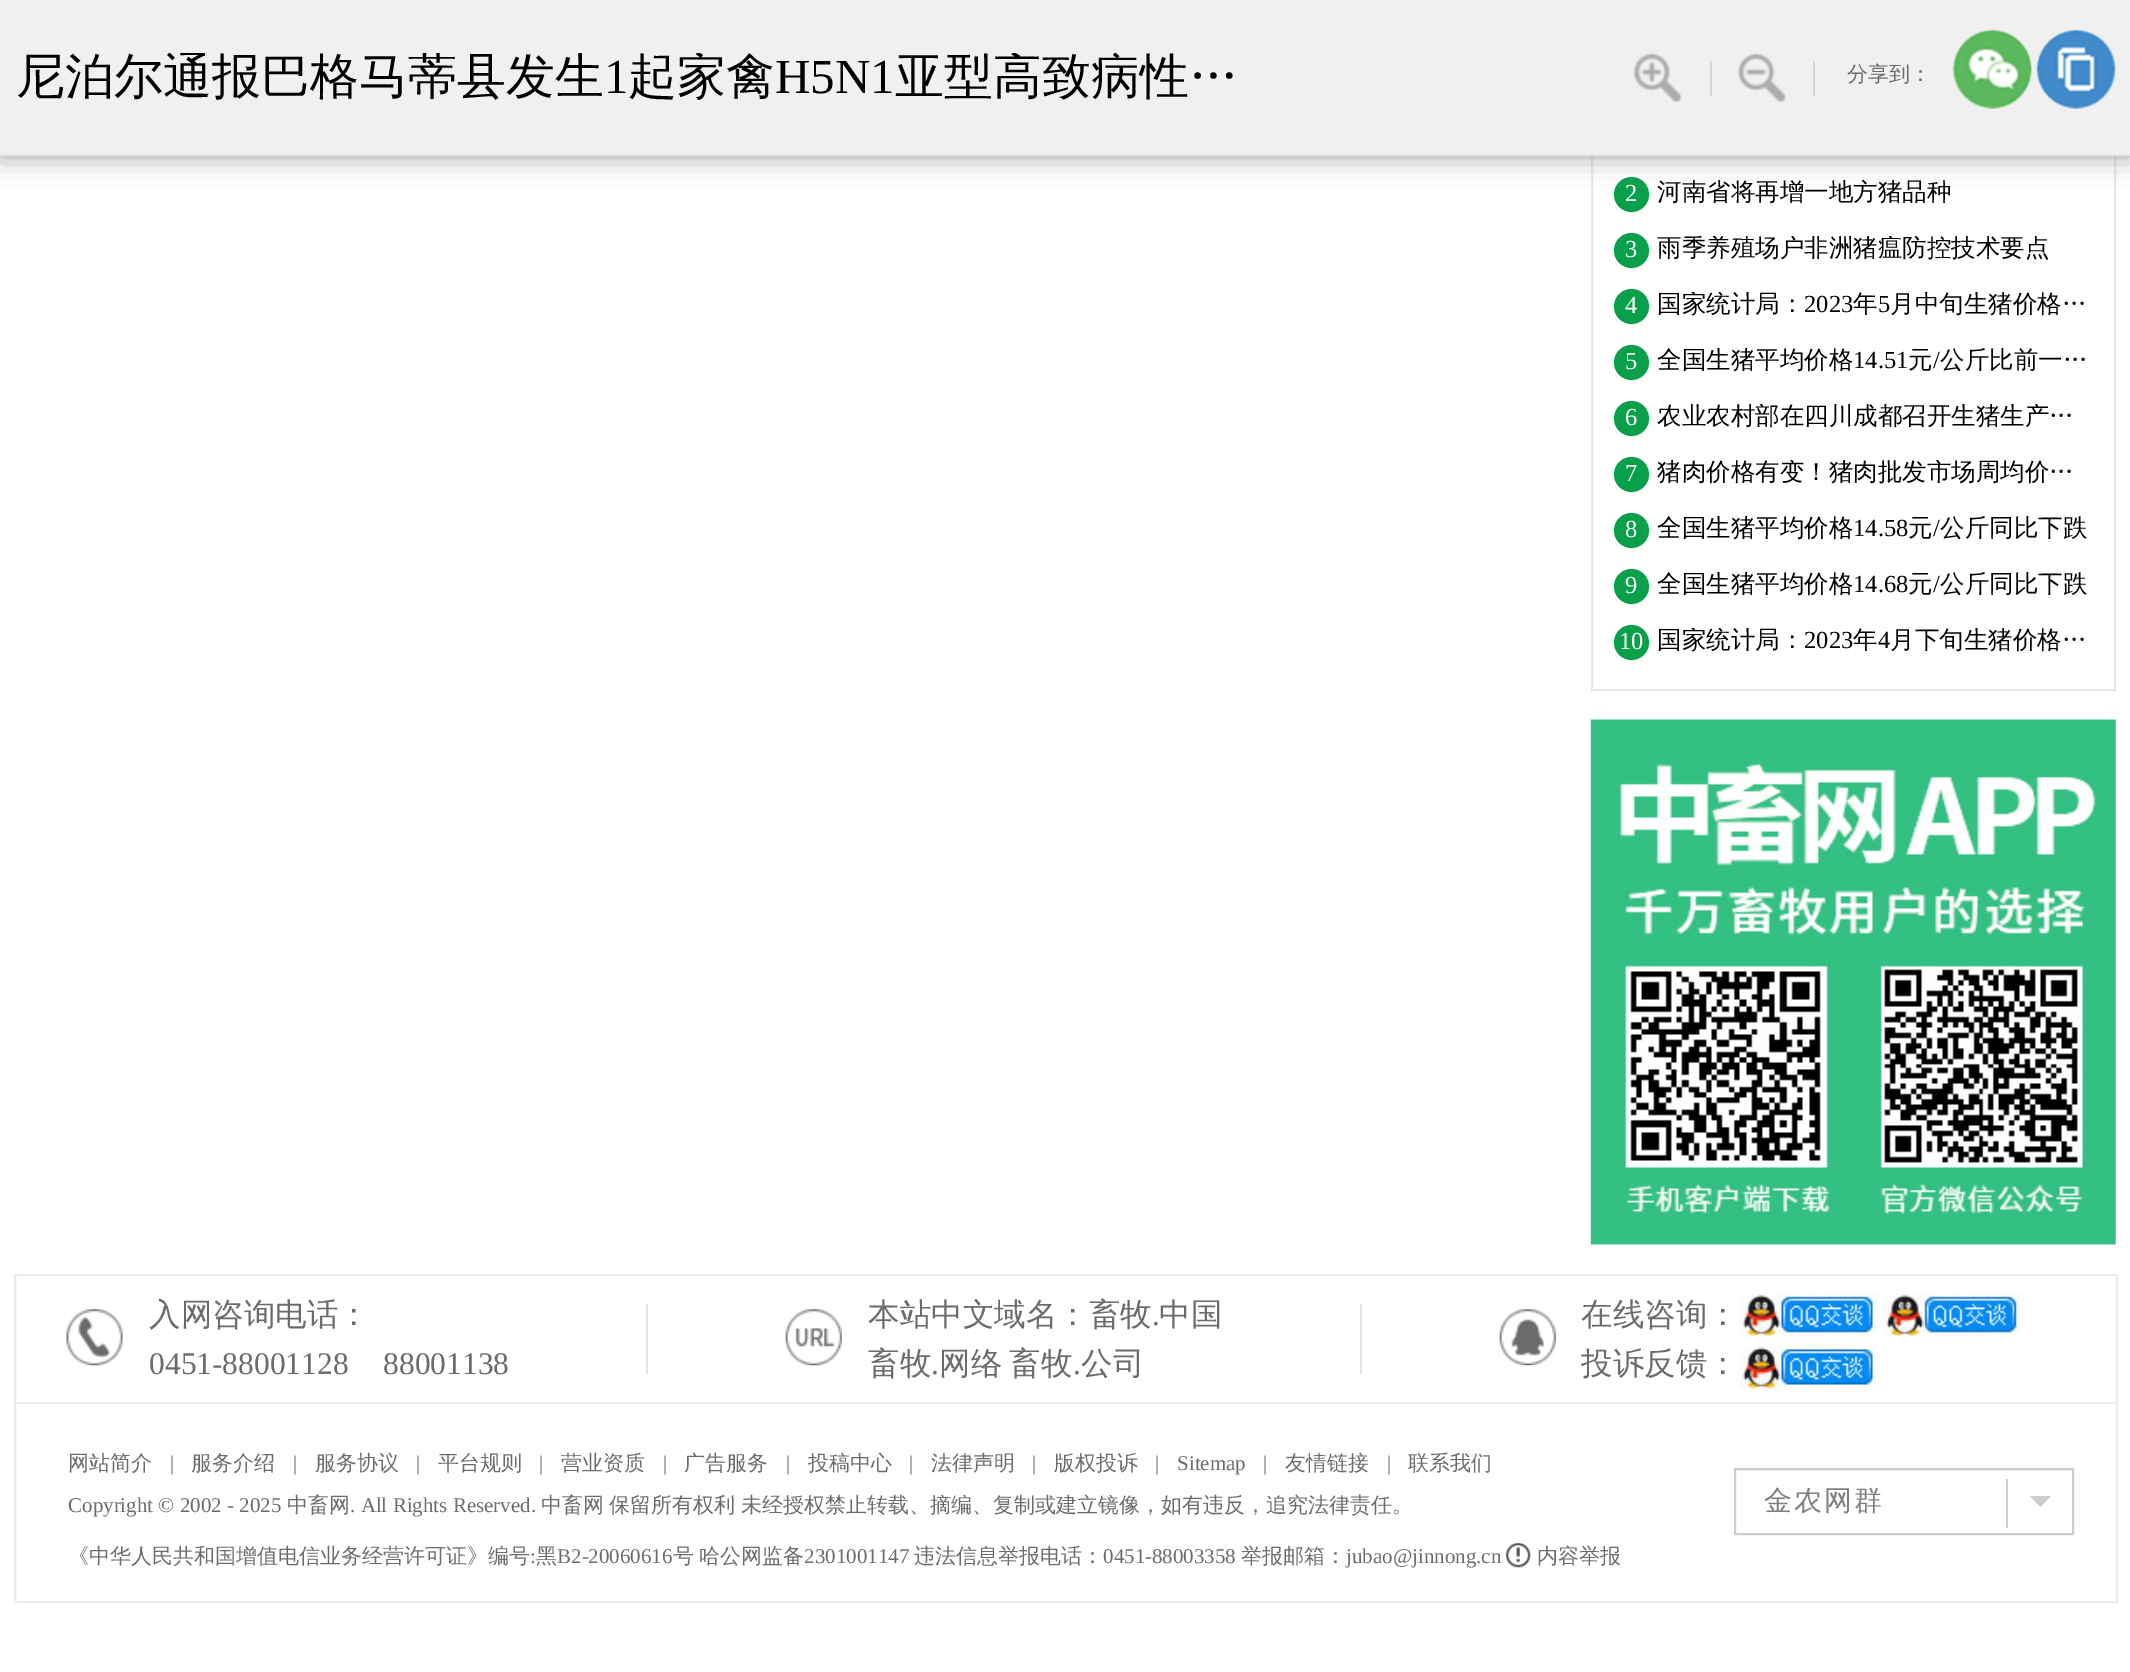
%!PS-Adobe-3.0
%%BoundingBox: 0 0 2130 1672
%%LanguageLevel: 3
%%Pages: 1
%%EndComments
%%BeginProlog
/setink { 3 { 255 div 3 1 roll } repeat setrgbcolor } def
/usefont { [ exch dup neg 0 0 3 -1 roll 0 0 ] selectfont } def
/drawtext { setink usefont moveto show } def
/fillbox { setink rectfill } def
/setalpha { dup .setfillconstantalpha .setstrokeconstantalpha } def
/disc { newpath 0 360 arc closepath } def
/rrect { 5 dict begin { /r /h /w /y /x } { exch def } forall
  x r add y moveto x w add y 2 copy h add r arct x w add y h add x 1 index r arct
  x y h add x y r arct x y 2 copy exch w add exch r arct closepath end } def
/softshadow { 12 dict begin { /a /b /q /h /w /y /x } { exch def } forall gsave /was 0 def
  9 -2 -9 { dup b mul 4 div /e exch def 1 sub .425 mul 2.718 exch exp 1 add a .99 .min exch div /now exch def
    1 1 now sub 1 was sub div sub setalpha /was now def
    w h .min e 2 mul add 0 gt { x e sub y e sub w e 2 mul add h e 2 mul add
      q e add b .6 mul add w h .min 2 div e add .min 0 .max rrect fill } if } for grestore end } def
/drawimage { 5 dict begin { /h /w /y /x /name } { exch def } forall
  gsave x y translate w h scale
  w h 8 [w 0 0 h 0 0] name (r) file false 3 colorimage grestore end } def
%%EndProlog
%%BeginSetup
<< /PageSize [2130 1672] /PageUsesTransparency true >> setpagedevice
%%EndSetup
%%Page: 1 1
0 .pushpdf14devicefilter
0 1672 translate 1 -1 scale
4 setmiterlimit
0 0 2130 1672 255 255 255 fillbox
231 231 231 setink
2 setlinewidth
1592 85 523 605 rectstroke
8 160 75 setink
1631.5 194.5 17.5 disc fill
153 153 153 setink
0 0 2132 156 0 14 1 softshadow
0 0 2130 154 240 240 240 fillbox
0 154 2130 2 231 231 231 fillbox
gsave
16 53 1225 49 rectclip
(尼泊尔通报巴格马蒂县发生) 16 93 /WenQuanYiZenHei-Medium 49 1 1 1 drawtext
grestore
(1) 604 93 /LiberationSerif-Regular 49 1 1 1 drawtext
gsave
16 53 1225 49 rectclip
(起家禽) 628 93 /WenQuanYiZenHei-Medium 49 1 1 1 drawtext
grestore
(H5N1) 775 93 /LiberationSerif-Regular 49 1 1 1 drawtext
gsave
16 53 1225 49 rectclip
(亚型高致病性…) 895 93 /WenQuanYiZenHei-Medium 49 1 1 1 drawtext
grestore
(assets/img1.rgb) 1633 53 49 49 drawimage
1710 61 2 35 215 215 215 fillbox
(assets/img2.rgb) 1737 53 49 49 drawimage
1813 61 2 35 215 215 215 fillbox
(分享到：) 1847 81 /WenQuanYiZenHei-Medium 21 107 107 107 drawtext
(assets/img3.rgb) 1952 29 80 80 drawimage
(assets/img4.rgb) 2036 29 80 80 drawimage
(2) 1625 201 /LiberationSerif-Regular 24.5 255 255 255 drawtext
gsave
1657 180 438 25 rectclip
(河南省将再增一地方猪品种) 1657 200 /WenQuanYiZenHei-Medium 24.5 1 1 1 drawtext
grestore
8 160 75 setink
1631.5 250.5 17.5 disc fill
(3) 1625 257 /LiberationSerif-Regular 24.5 255 255 255 drawtext
gsave
1657 236 438 25 rectclip
(雨季养殖场户非洲猪瘟防控技术要点) 1657 256 /WenQuanYiZenHei-Medium 24.5 1 1 1 drawtext
grestore
8 160 75 setink
1631.5 306.5 17.5 disc fill
(4) 1625 313 /LiberationSerif-Regular 24.5 255 255 255 drawtext
gsave
1657 292 438 25 rectclip
(国家统计局：) 1657 312 /WenQuanYiZenHei-Medium 24.5 1 1 1 drawtext
grestore
(2023) 1804 312 /LiberationSerif-Regular 24.5 1 1 1 drawtext
(年) 1853 312 /WenQuanYiZenHei-Medium 24.5 1 1 1 drawtext
(5) 1878 312 /LiberationSerif-Regular 24.5 1 1 1 drawtext
gsave
1657 292 438 25 rectclip
(月中旬生猪价格…) 1890 312 /WenQuanYiZenHei-Medium 24.5 1 1 1 drawtext
grestore
8 160 75 setink
1631.5 362.5 17.5 disc fill
(5) 1625 369 /LiberationSerif-Regular 24.5 255 255 255 drawtext
gsave
1657 348 438 25 rectclip
(全国生猪平均价格) 1657 368 /WenQuanYiZenHei-Medium 24.5 1 1 1 drawtext
grestore
(14.51) 1853 368 /LiberationSerif-Regular 24.5 1 1 1 drawtext
(元) 1908 368 /WenQuanYiZenHei-Medium 24.5 1 1 1 drawtext
(/) 1933 368 /LiberationSerif-Regular 24.5 1 1 1 drawtext
gsave
1657 348 438 25 rectclip
(公斤比前一…) 1940 368 /WenQuanYiZenHei-Medium 24.5 1 1 1 drawtext
grestore
8 160 75 setink
1631.5 418.5 17.5 disc fill
(6) 1625 425 /LiberationSerif-Regular 24.5 255 255 255 drawtext
gsave
1657 404 438 25 rectclip
(农业农村部在四川成都召开生猪生产…) 1657 424 /WenQuanYiZenHei-Medium 24.5 1 1 1 drawtext
grestore
8 160 75 setink
1631.5 474.5 17.5 disc fill
(7) 1625 481 /LiberationSerif-Regular 24.5 255 255 255 drawtext
gsave
1657 460 438 25 rectclip
(猪肉价格有变！猪肉批发市场周均价…) 1657 480 /WenQuanYiZenHei-Medium 24.5 1 1 1 drawtext
grestore
8 160 75 setink
1631.5 530.5 17.5 disc fill
(8) 1625 537 /LiberationSerif-Regular 24.5 255 255 255 drawtext
gsave
1657 516 438 25 rectclip
(全国生猪平均价格) 1657 536 /WenQuanYiZenHei-Medium 24.5 1 1 1 drawtext
grestore
(14.58) 1853 536 /LiberationSerif-Regular 24.5 1 1 1 drawtext
(元) 1908 536 /WenQuanYiZenHei-Medium 24.5 1 1 1 drawtext
(/) 1933 536 /LiberationSerif-Regular 24.5 1 1 1 drawtext
gsave
1657 516 438 25 rectclip
(公斤同比下跌) 1940 536 /WenQuanYiZenHei-Medium 24.5 1 1 1 drawtext
grestore
8 160 75 setink
1631.5 586.5 17.5 disc fill
(9) 1625 593 /LiberationSerif-Regular 24.5 255 255 255 drawtext
gsave
1657 572 438 25 rectclip
(全国生猪平均价格) 1657 592 /WenQuanYiZenHei-Medium 24.5 1 1 1 drawtext
grestore
(14.68) 1853 592 /LiberationSerif-Regular 24.5 1 1 1 drawtext
(元) 1908 592 /WenQuanYiZenHei-Medium 24.5 1 1 1 drawtext
(/) 1933 592 /LiberationSerif-Regular 24.5 1 1 1 drawtext
gsave
1657 572 438 25 rectclip
(公斤同比下跌) 1940 592 /WenQuanYiZenHei-Medium 24.5 1 1 1 drawtext
grestore
8 160 75 setink
1631.5 642.5 17.5 disc fill
(10) 1619 649 /LiberationSerif-Regular 24.5 255 255 255 drawtext
gsave
1657 628 438 25 rectclip
(国家统计局：) 1657 648 /WenQuanYiZenHei-Medium 24.5 1 1 1 drawtext
grestore
(2023) 1804 648 /LiberationSerif-Regular 24.5 1 1 1 drawtext
(年) 1853 648 /WenQuanYiZenHei-Medium 24.5 1 1 1 drawtext
(4) 1878 648 /LiberationSerif-Regular 24.5 1 1 1 drawtext
gsave
1657 628 438 25 rectclip
(月下旬生猪价格…) 1890 648 /WenQuanYiZenHei-Medium 24.5 1 1 1 drawtext
grestore
(assets/img5.rgb) 1590 719 526 526 drawimage
235 235 235 setink
15 1275 2102 327 rectstroke
(assets/img6.rgb) 66 1309 57 57 drawimage
(入网咨询电话：) 149 1325 /WenQuanYiZenHei-Medium 31.5 107 107 107 drawtext
(0451-88001128) 149 1374 /LiberationSerif-Regular 31.5 107 107 107 drawtext
(88001138) 383 1374 /LiberationSerif-Regular 31.5 107 107 107 drawtext
646 1304 2 70 229 229 229 fillbox
(assets/img7.rgb) 785 1309 57 57 drawimage
(本站中文域名：畜牧) 868 1325 /WenQuanYiZenHei-Medium 31.5 107 107 107 drawtext
(.) 1152 1325 /LiberationSerif-Regular 31.5 107 107 107 drawtext
(中国) 1159 1325 /WenQuanYiZenHei-Medium 31.5 107 107 107 drawtext
(畜牧) 868 1374 /WenQuanYiZenHei-Medium 31.5 107 107 107 drawtext
(.) 931 1374 /LiberationSerif-Regular 31.5 107 107 107 drawtext
/WenQuanYiZenHei-Medium 31.5 usefont
939 1374 moveto -2 0 32 (网络 畜牧) widthshow
(.) 1073 1374 /LiberationSerif-Regular 31.5 107 107 107 drawtext
(公司) 1081 1374 /WenQuanYiZenHei-Medium 31.5 107 107 107 drawtext
1360 1304 2 70 229 229 229 fillbox
(assets/img8.rgb) 1499 1309 57 57 drawimage
(在线咨询：) 1581 1325 /WenQuanYiZenHei-Medium 31.5 107 107 107 drawtext
(投诉反馈：) 1581 1374 /WenQuanYiZenHei-Medium 31.5 107 107 107 drawtext
(assets/img9.rgb) 1739 1293 137 43 drawimage
(assets/img10.rgb) 1883 1293 137 43 drawimage
(assets/img11.rgb) 1739 1346 137 43 drawimage
16 1402 2100 2 235 235 235 fillbox
(网站简介) 68 1470 /WenQuanYiZenHei-Medium 21 107 107 107 drawtext
(|) 170 1470 /LiberationSerif-Regular 21 107 107 107 drawtext
(服务介绍) 191 1470 /WenQuanYiZenHei-Medium 21 107 107 107 drawtext
(|) 293 1470 /LiberationSerif-Regular 21 107 107 107 drawtext
(服务协议) 315 1470 /WenQuanYiZenHei-Medium 21 107 107 107 drawtext
(|) 416 1470 /LiberationSerif-Regular 21 107 107 107 drawtext
(平台规则) 438 1470 /WenQuanYiZenHei-Medium 21 107 107 107 drawtext
(|) 539 1470 /LiberationSerif-Regular 21 107 107 107 drawtext
(营业资质) 561 1470 /WenQuanYiZenHei-Medium 21 107 107 107 drawtext
(|) 663 1470 /LiberationSerif-Regular 21 107 107 107 drawtext
(广告服务) 684 1470 /WenQuanYiZenHei-Medium 21 107 107 107 drawtext
(|) 786 1470 /LiberationSerif-Regular 21 107 107 107 drawtext
(投稿中心) 808 1470 /WenQuanYiZenHei-Medium 21 107 107 107 drawtext
(|) 909 1470 /LiberationSerif-Regular 21 107 107 107 drawtext
(法律声明) 931 1470 /WenQuanYiZenHei-Medium 21 107 107 107 drawtext
(|) 1032 1470 /LiberationSerif-Regular 21 107 107 107 drawtext
(版权投诉) 1054 1470 /WenQuanYiZenHei-Medium 21 107 107 107 drawtext
(|) 1155 1470 /LiberationSerif-Regular 21 107 107 107 drawtext
(Sitemap) 1177 1470 /LiberationSerif-Regular 21 107 107 107 drawtext
(|) 1263 1470 /LiberationSerif-Regular 21 107 107 107 drawtext
(友情链接) 1285 1470 /WenQuanYiZenHei-Medium 21 107 107 107 drawtext
(|) 1387 1470 /LiberationSerif-Regular 21 107 107 107 drawtext
(联系我们) 1408 1470 /WenQuanYiZenHei-Medium 21 107 107 107 drawtext
(Copyright © 2002 - 2025) 68 1512 /LiberationSerif-Regular 21 107 107 107 drawtext
(中畜网) 287 1512 /WenQuanYiZenHei-Medium 21 107 107 107 drawtext
(. All Rights Reserved.) 350 1512 /LiberationSerif-Regular 21 107 107 107 drawtext
/WenQuanYiZenHei-Medium 21 usefont
541 1512 moveto -1 0 32 (中畜网 保留所有权利 未经授权禁止转载、摘编、复制或建立镜像，如有违反，追究法律责任。) widthshow
205 205 205 setink
1735 1469 338 65 rectstroke
/WenQuanYiZenHei-Medium 28 usefont
127 127 127 setink
1764 1510 moveto 2 0 (金农网群) ashow
2006 1479 2 49 205 205 205 fillbox
2030 1496 moveto 2051 1496 lineto 2040.5 1507 lineto closepath fill
(《中华人民共和国增值电信业务经营许可证》编号) 68 1563 /WenQuanYiZenHei-Medium 21 107 107 107 drawtext
(:) 530 1563 /LiberationSerif-Regular 21 107 107 107 drawtext
(黑) 536 1563 /WenQuanYiZenHei-Medium 21 107 107 107 drawtext
(B2-20060616) 557 1563 /LiberationSerif-Regular 21 107 107 107 drawtext
(号) 673 1563 /WenQuanYiZenHei-Medium 21 107 107 107 drawtext
(哈公网监备) 699 1563 /WenQuanYiZenHei-Medium 21 107 107 107 drawtext
(2301001147) 804 1563 /LiberationSerif-Regular 21 107 107 107 drawtext
(违法信息举报电话：) 914 1563 /WenQuanYiZenHei-Medium 21 107 107 107 drawtext
(0451-88003358) 1103 1563 /LiberationSerif-Regular 21 107 107 107 drawtext
(举报邮箱：) 1241 1563 /WenQuanYiZenHei-Medium 21 107 107 107 drawtext
(jubao@jinnong.cn) 1346 1563 /LiberationSerif-Regular 21 107 107 107 drawtext
(assets/img12.rgb) 1506 1543 25 25 drawimage
(内容举报) 1537 1563 /WenQuanYiZenHei-Medium 21 107 107 107 drawtext
.poppdf14devicefilter showpage
%%EOF
